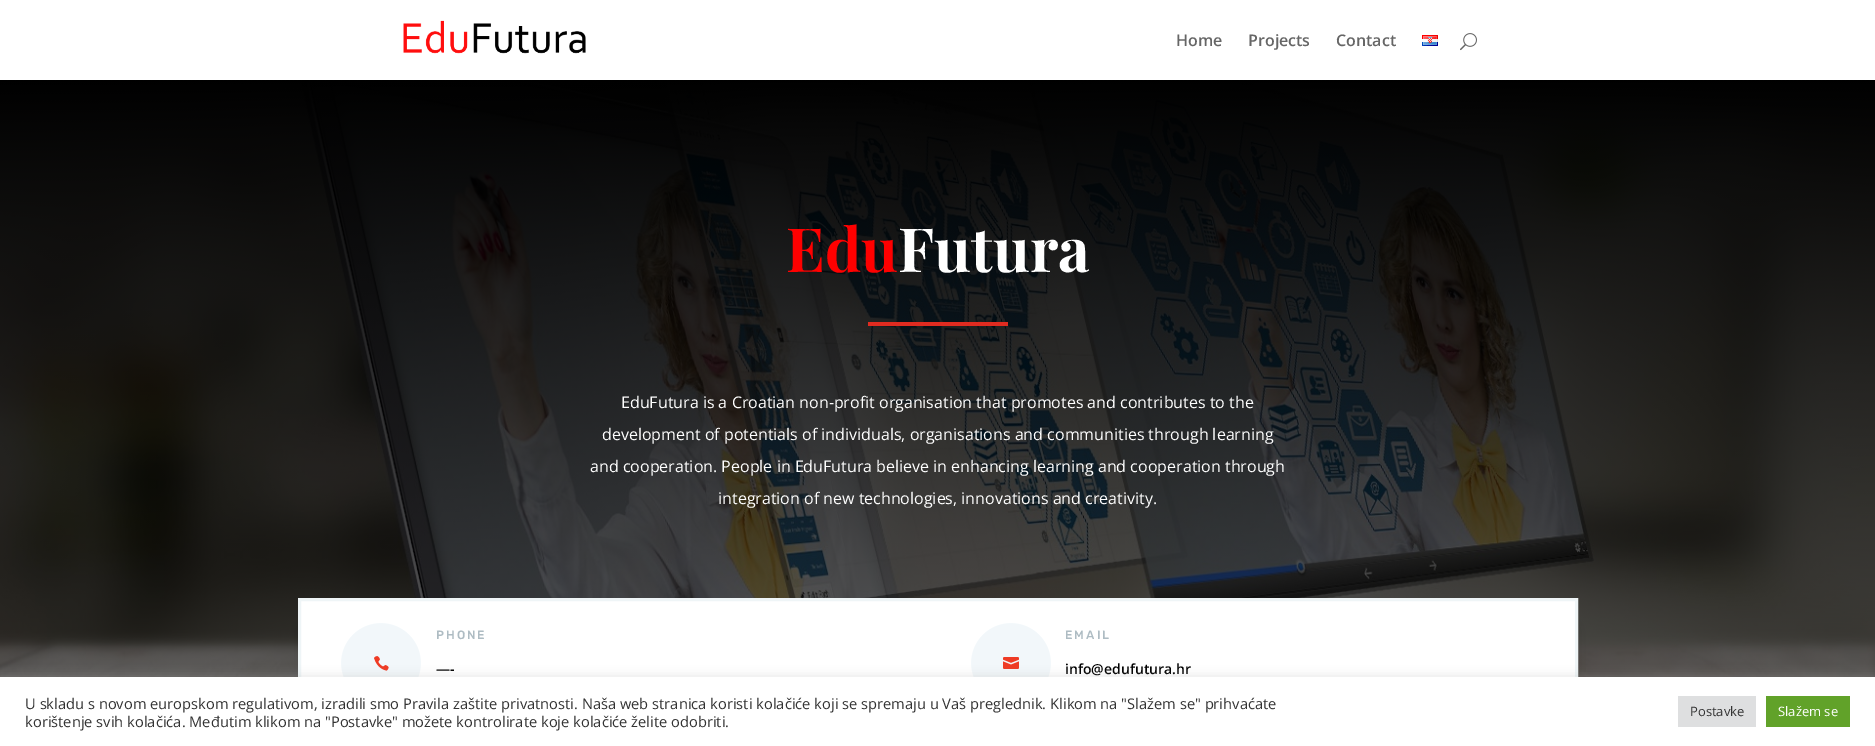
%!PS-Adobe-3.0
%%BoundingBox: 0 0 1875 746
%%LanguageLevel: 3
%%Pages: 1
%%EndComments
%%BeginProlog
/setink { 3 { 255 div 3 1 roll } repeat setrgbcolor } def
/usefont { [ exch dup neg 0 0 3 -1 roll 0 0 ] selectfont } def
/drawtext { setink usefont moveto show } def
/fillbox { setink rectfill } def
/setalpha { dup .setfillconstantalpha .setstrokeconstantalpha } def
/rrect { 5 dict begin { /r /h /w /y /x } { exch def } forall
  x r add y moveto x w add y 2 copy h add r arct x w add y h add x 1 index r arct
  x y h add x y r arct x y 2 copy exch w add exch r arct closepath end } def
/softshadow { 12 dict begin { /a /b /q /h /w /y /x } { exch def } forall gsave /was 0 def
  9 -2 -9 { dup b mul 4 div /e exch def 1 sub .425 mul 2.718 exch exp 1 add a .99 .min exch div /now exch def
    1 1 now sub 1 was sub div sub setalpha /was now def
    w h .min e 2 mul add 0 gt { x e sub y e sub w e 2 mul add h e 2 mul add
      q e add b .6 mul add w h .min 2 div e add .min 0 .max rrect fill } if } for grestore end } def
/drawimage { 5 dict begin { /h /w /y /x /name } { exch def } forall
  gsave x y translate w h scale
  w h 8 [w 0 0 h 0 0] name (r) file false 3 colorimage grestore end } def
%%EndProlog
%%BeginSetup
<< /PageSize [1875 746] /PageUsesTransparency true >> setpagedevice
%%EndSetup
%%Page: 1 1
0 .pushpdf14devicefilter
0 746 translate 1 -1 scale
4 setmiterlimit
0 0 1875 746 255 255 255 fillbox
(assets/img1.rgb) 403 20 183 34 drawimage
(Home) 1176 46 /OpenSans-SemiBold 16 102 102 102 drawtext
(Projects) 1248 46 /OpenSans-SemiBold 16 102 102 102 drawtext
(Contact) 1336 46 /OpenSans-SemiBold 16 102 102 102 drawtext
(assets/img2.rgb) 1422 35 16 11 drawimage
(assets/img3.rgb) 1460 33 17 18 drawimage
(assets/img4.rgb) 0 80 1875 597 drawimage
(Edu) 786 272 /PlayfairDisplay-Bold 61 255 0 0 drawtext
(Futura) 898 272 /PlayfairDisplay-Bold 61 255 255 255 drawtext
868 322 140 4 224 43 32 fillbox
(EduFutura is a Croatian non-profit organisation that promotes and contributes to the) 621 408 /OpenSans-Regular 16 255 255 255 drawtext
(development of potentials of individuals, organisations and communities through learning) 602 440 /OpenSans-Regular 16 255 255 255 drawtext
(and cooperation. People in EduFutura believe in enhancing learning and cooperation through) 590 472 /OpenSans-Regular 16 255 255 255 drawtext
(integration of new technologies, innovations and creativity.) 718 504 /OpenSans-Regular 16 255 255 255 drawtext
0 0 0 setink
307 630 1262 112 0 7.5 0.37 softshadow
301 601 1274 76 255 255 255 fillbox
239 245 247 setink
3 setlinewidth
299.5 599.5 1277 127 rectstroke
(assets/img5.rgb) 341 623 80 54 drawimage
/Rubik-Light 12 usefont
174 188 195 setink
436 639 moveto 2 0 (PHONE) ashow
(—-) 436 674 /OpenSans-SemiBold 14 0 0 0 drawtext
(assets/img6.rgb) 971 623 80 54 drawimage
/Rubik-Light 12 usefont
174 188 195 setink
1065 639 moveto 2 0 (EMAIL) ashow
(info@edufutura.hr) 1065 674 /OpenSans-SemiBold 14 0 0 0 drawtext
172 171 171 setink
0 676 1875 69 0 5 0.3 softshadow
0 677 1875 69 255 255 255 fillbox
(U skladu s novom europskom regulativom, izradili smo Pravila zaštite privatnosti. Naša web stranica koristi kolačiće koji se spremaju u Vaš preglednik. Klikom na "Slažem se" prihvaćate) 25 709 /OpenSans-Regular 14.67 51 51 51 drawtext
(korištenje svih kolačića. Međutim klikom na "Postavke" možete kontrolirate koje kolačiće želite odobriti.) 25 727 /OpenSans-Regular 14.67 51 51 51 drawtext
1678 696 78 31 222 223 224 fillbox
(Postavke) 1690 716 /OpenSans-Regular 13 51 51 51 drawtext
1766 696 84 31 97 162 41 fillbox
(Slažem se) 1778 716 /OpenSans-Regular 13 255 255 255 drawtext
.poppdf14devicefilter showpage
%%EOF
